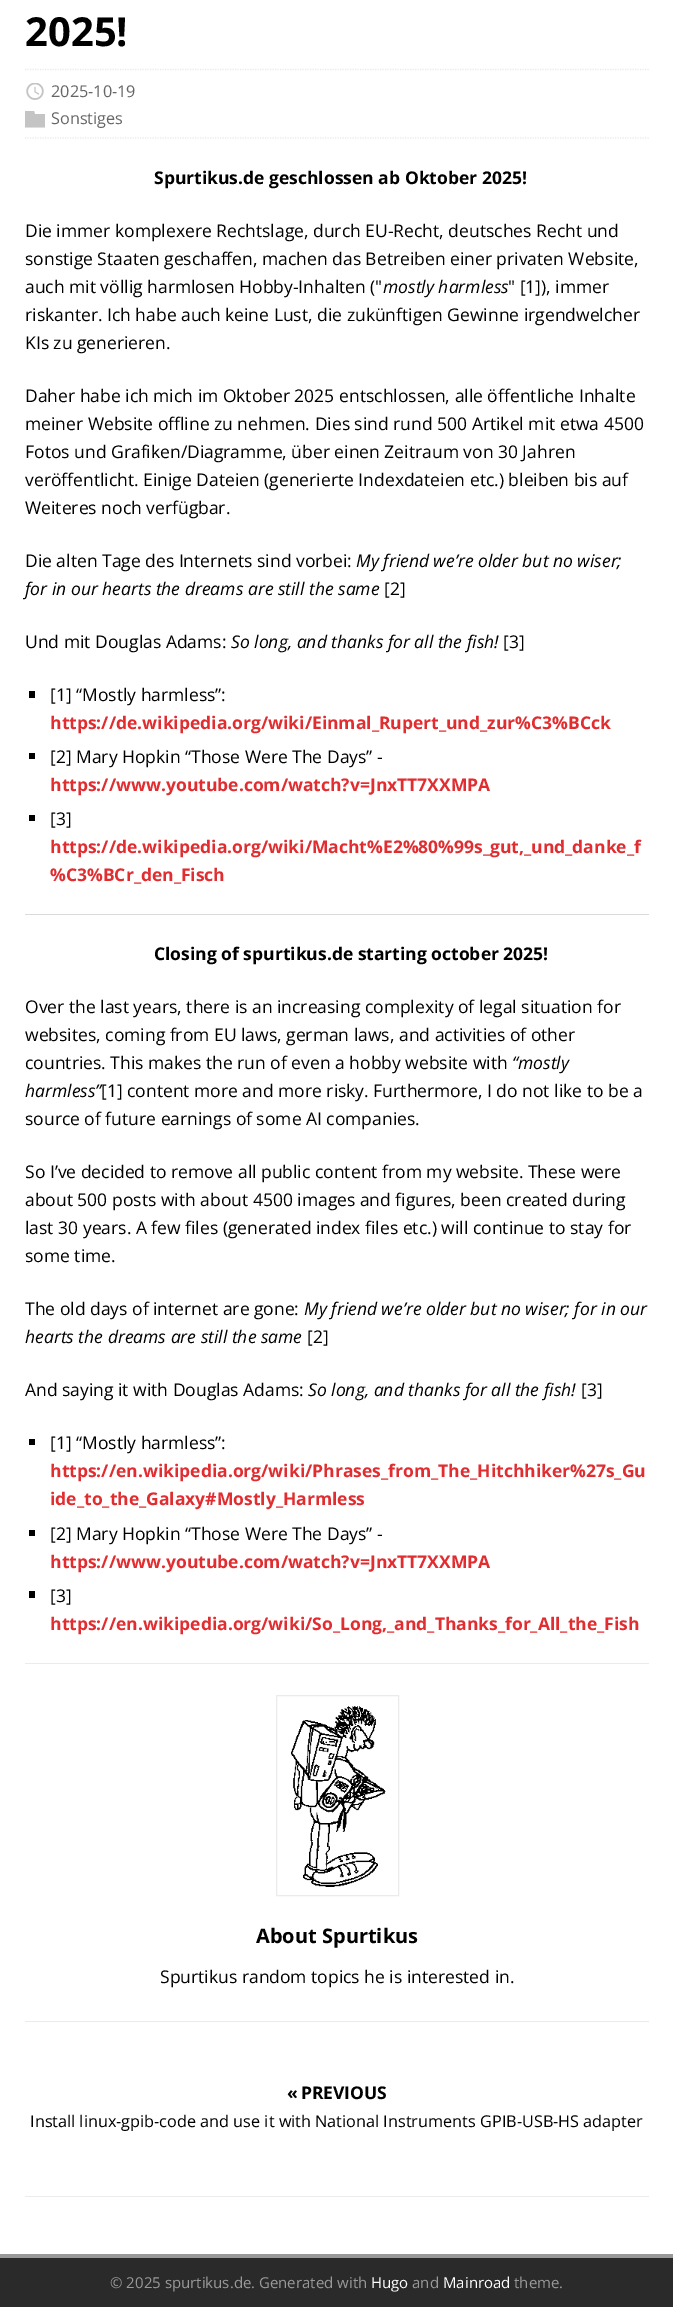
%!PS-Adobe-3.0
%%BoundingBox: 0 0 673 2307
%%LanguageLevel: 3
%%Pages: 1
%%EndComments
%%BeginProlog
/setink { 3 { 255 div 3 1 roll } repeat setrgbcolor } def
/usefont { [ exch dup neg 0 0 3 -1 roll 0 0 ] selectfont } def
/drawtext { setink usefont moveto show } def
/fillbox { setink rectfill } def
/drawimage { 5 dict begin { /h /w /y /x /name } { exch def } forall
  gsave x y translate w h scale
  w h 8 [w 0 0 h 0 0] name (r) file false 3 colorimage grestore end } def
%%EndProlog
%%BeginSetup
<< /PageSize [673 2307] >> setpagedevice
%%EndSetup
%%Page: 1 1
0 2307 translate 1 -1 scale
4 setmiterlimit
0 0 673 2307 255 255 255 fillbox
(2025!) 25 46 /OpenSans-Bold 40 0 0 0 drawtext
235 235 235 setink
1.2 setlinewidth
[1.25 1.25] 0 setdash
25 69.5 moveto 649 69.5 lineto stroke
25 138 moveto 649 138 lineto stroke
(assets/img1.rgb) 26 83 18 17 drawimage
(2025-10-19) 51 97 /OpenSans-Regular 16.25 102 102 102 drawtext
196 196 196 setink
34 111 moveto 35 114 lineto 45 114 lineto 45 127.5 lineto 25 127.5 lineto 25 111 lineto closepath fill
(Sonstiges) 51 124 /OpenSans-Regular 16.25 102 102 102 drawtext
(Spurtikus.de geschlossen ab Oktober 2025!) 154 184 /OpenSans-Bold 17.5 0 0 0 drawtext
(Die immer komplexere Rechtslage, durch EU-Recht, deutsches Recht und) 25 237 /OpenSans-Regular 17.5 0 0 0 drawtext
(sonstige Staaten geschaffen, machen das Betreiben einer privaten Website,) 25 265 /OpenSans-Regular 17.5 0 0 0 drawtext
(auch mit völlig harmlosen Hobby-Inhalten \(") 25 293 /OpenSans-Regular 17.5 0 0 0 drawtext
(mostly harmless) 383 293 /OpenSans-Italic 17.5 0 0 0 drawtext
(" [1]\), immer) 508 293 /OpenSans-Regular 17.5 0 0 0 drawtext
(riskanter. Ich habe auch keine Lust, die zukünftigen Gewinne irgendwelcher) 25 321 /OpenSans-Regular 17.5 0 0 0 drawtext
(KIs zu generieren.) 25 349 /OpenSans-Regular 17.5 0 0 0 drawtext
(Daher habe ich mich im Oktober 2025 entschlossen, alle öffentliche Inhalte) 25 402 /OpenSans-Regular 17.5 0 0 0 drawtext
(meiner Website offline zu nehmen. Dies sind rund 500 Artikel mit etwa 4500) 25 430 /OpenSans-Regular 17.5 0 0 0 drawtext
(Fotos und Grafiken/Diagramme, über einen Zeitraum von 30 Jahren) 25 458 /OpenSans-Regular 17.5 0 0 0 drawtext
(veröffentlicht. Einige Dateien \(generierte Indexdateien etc.\) bleiben bis auf) 25 486 /OpenSans-Regular 17.5 0 0 0 drawtext
(Weiteres noch verfügbar.) 25 514 /OpenSans-Regular 17.5 0 0 0 drawtext
(Die alten Tage des Internets sind vorbei:) 25 567 /OpenSans-Regular 17.5 0 0 0 drawtext
(My friend we’re older but no wiser;) 356 567 /OpenSans-Italic 17.5 0 0 0 drawtext
(for in our hearts the dreams are still the same) 25 595 /OpenSans-Italic 17.5 0 0 0 drawtext
([2]) 384 595 /OpenSans-Regular 17.5 0 0 0 drawtext
(Und mit Douglas Adams:) 25 648 /OpenSans-Regular 17.5 0 0 0 drawtext
(So long, and thanks for all the fish!) 231 648 /OpenSans-Italic 17.5 0 0 0 drawtext
([3]) 503 648 /OpenSans-Regular 17.5 0 0 0 drawtext
29 691 6 7 0 0 0 fillbox
([1] “Mostly harmless”:) 50 701 /OpenSans-Regular 17.5 0 0 0 drawtext
(https://de.wikipedia.org/wiki/Einmal_Rupert_und_zur%C3%BCck) 50 729 /OpenSans-Bold 17.5 226 45 48 drawtext
29 753 6 6 0 0 0 fillbox
([2] Mary Hopkin “Those Were The Days” -) 50 763 /OpenSans-Regular 17.5 0 0 0 drawtext
(https://www.youtube.com/watch?v=JnxTT7XXMPA) 50 791 /OpenSans-Bold 17.5 226 45 48 drawtext
29 815 6 6 0 0 0 fillbox
([3]) 50 825 /OpenSans-Regular 17.5 0 0 0 drawtext
(https://de.wikipedia.org/wiki/Macht%E2%80%99s_gut,_und_danke_f) 50 853 /OpenSans-Bold 17.5 226 45 48 drawtext
(%C3%BCr_den_Fisch) 50 881 /OpenSans-Bold 17.5 226 45 48 drawtext
25 914 624 1 218 218 218 fillbox
(Closing of spurtikus.de starting october 2025!) 154 960 /OpenSans-Bold 17.5 0 0 0 drawtext
(Over the last years, there is an increasing complexity of legal situation for) 25 1013 /OpenSans-Regular 17.5 0 0 0 drawtext
(websites, coming from EU laws, german laws, and activities of other) 25 1041 /OpenSans-Regular 17.5 0 0 0 drawtext
(countries. This makes the run of even a hobby website with) 25 1069 /OpenSans-Regular 17.5 0 0 0 drawtext
(“mostly) 512 1069 /OpenSans-Italic 17.5 0 0 0 drawtext
(harmless”) 25 1097 /OpenSans-Italic 17.5 0 0 0 drawtext
([1] content more and more risky. Furthermore, I do not like to be a) 101 1097 /OpenSans-Regular 17.5 0 0 0 drawtext
(source of future earnings of some AI companies.) 25 1125 /OpenSans-Regular 17.5 0 0 0 drawtext
(So I’ve decided to remove all public content from my website. These were) 25 1178 /OpenSans-Regular 17.5 0 0 0 drawtext
(about 500 posts with about 4500 images and figures, been created during) 25 1206 /OpenSans-Regular 17.5 0 0 0 drawtext
(last 30 years. A few files \(generated index files etc.\) will continue to stay for) 25 1234 /OpenSans-Regular 17.5 0 0 0 drawtext
(some time.) 25 1262 /OpenSans-Regular 17.5 0 0 0 drawtext
(The old days of internet are gone:) 25 1315 /OpenSans-Regular 17.5 0 0 0 drawtext
(My friend we’re older but no wiser; for in our) 304 1315 /OpenSans-Italic 17.5 0 0 0 drawtext
(hearts the dreams are still the same) 25 1343 /OpenSans-Italic 17.5 0 0 0 drawtext
([2]) 307 1343 /OpenSans-Regular 17.5 0 0 0 drawtext
(And saying it with Douglas Adams:) 25 1396 /OpenSans-Regular 17.5 0 0 0 drawtext
(So long, and thanks for all the fish!) 308 1396 /OpenSans-Italic 17.5 0 0 0 drawtext
([3]) 581 1396 /OpenSans-Regular 17.5 0 0 0 drawtext
29 1439 6 6 0 0 0 fillbox
([1] “Mostly harmless”:) 50 1449 /OpenSans-Regular 17.5 0 0 0 drawtext
(https://en.wikipedia.org/wiki/Phrases_from_The_Hitchhiker%27s_Gu) 50 1477 /OpenSans-Bold 17.5 226 45 48 drawtext
(ide_to_the_Galaxy#Mostly_Harmless) 50 1505 /OpenSans-Bold 17.5 226 45 48 drawtext
29 1530 6 6 0 0 0 fillbox
([2] Mary Hopkin “Those Were The Days” -) 50 1540 /OpenSans-Regular 17.5 0 0 0 drawtext
(https://www.youtube.com/watch?v=JnxTT7XXMPA) 50 1568 /OpenSans-Bold 17.5 226 45 48 drawtext
29 1591 6 7 0 0 0 fillbox
([3]) 50 1602 /OpenSans-Regular 17.5 0 0 0 drawtext
(https://en.wikipedia.org/wiki/So_Long,_and_Thanks_for_All_the_Fish) 50 1630 /OpenSans-Bold 17.5 226 45 48 drawtext
25 1663 624 1 235 235 235 fillbox
25 2021 624 1 235 235 235 fillbox
1 setlinewidth
[] 0 setdash
276.5 1695.5 122 200 rectstroke
(assets/img2.rgb) 291 1706 95 181 drawimage
(About Spurtikus) 256 1943 /OpenSans-Bold 20 0 0 0 drawtext
(Spurtikus random topics he is interested in.) 160 1983 /OpenSans-Regular 17.5 0 0 0 drawtext
25 2196 624 1 235 235 235 fillbox
(« PREVIOUS) 287 2099 /OpenSans-Bold 17.5 0 0 0 drawtext
(Install linux-gpib-code and use it with National Instruments GPIB-USB-HS adapter) 30 2127 /OpenSans-Regular 16.25 0 0 0 drawtext
0 2258 673 49 42 42 42 fillbox
0 2254 673 4 153 153 153 fillbox
(© 2025 spurtikus.de. Generated with) 110 2288 /OpenSans-Regular 15 153 153 153 drawtext
(Hugo) 371 2288 /OpenSans-Regular 15 255 255 255 drawtext
(and) 412 2288 /OpenSans-Regular 15 153 153 153 drawtext
(Mainroad) 443 2288 /OpenSans-Regular 15 255 255 255 drawtext
(theme.) 514 2288 /OpenSans-Regular 15 153 153 153 drawtext
showpage
%%EOF
